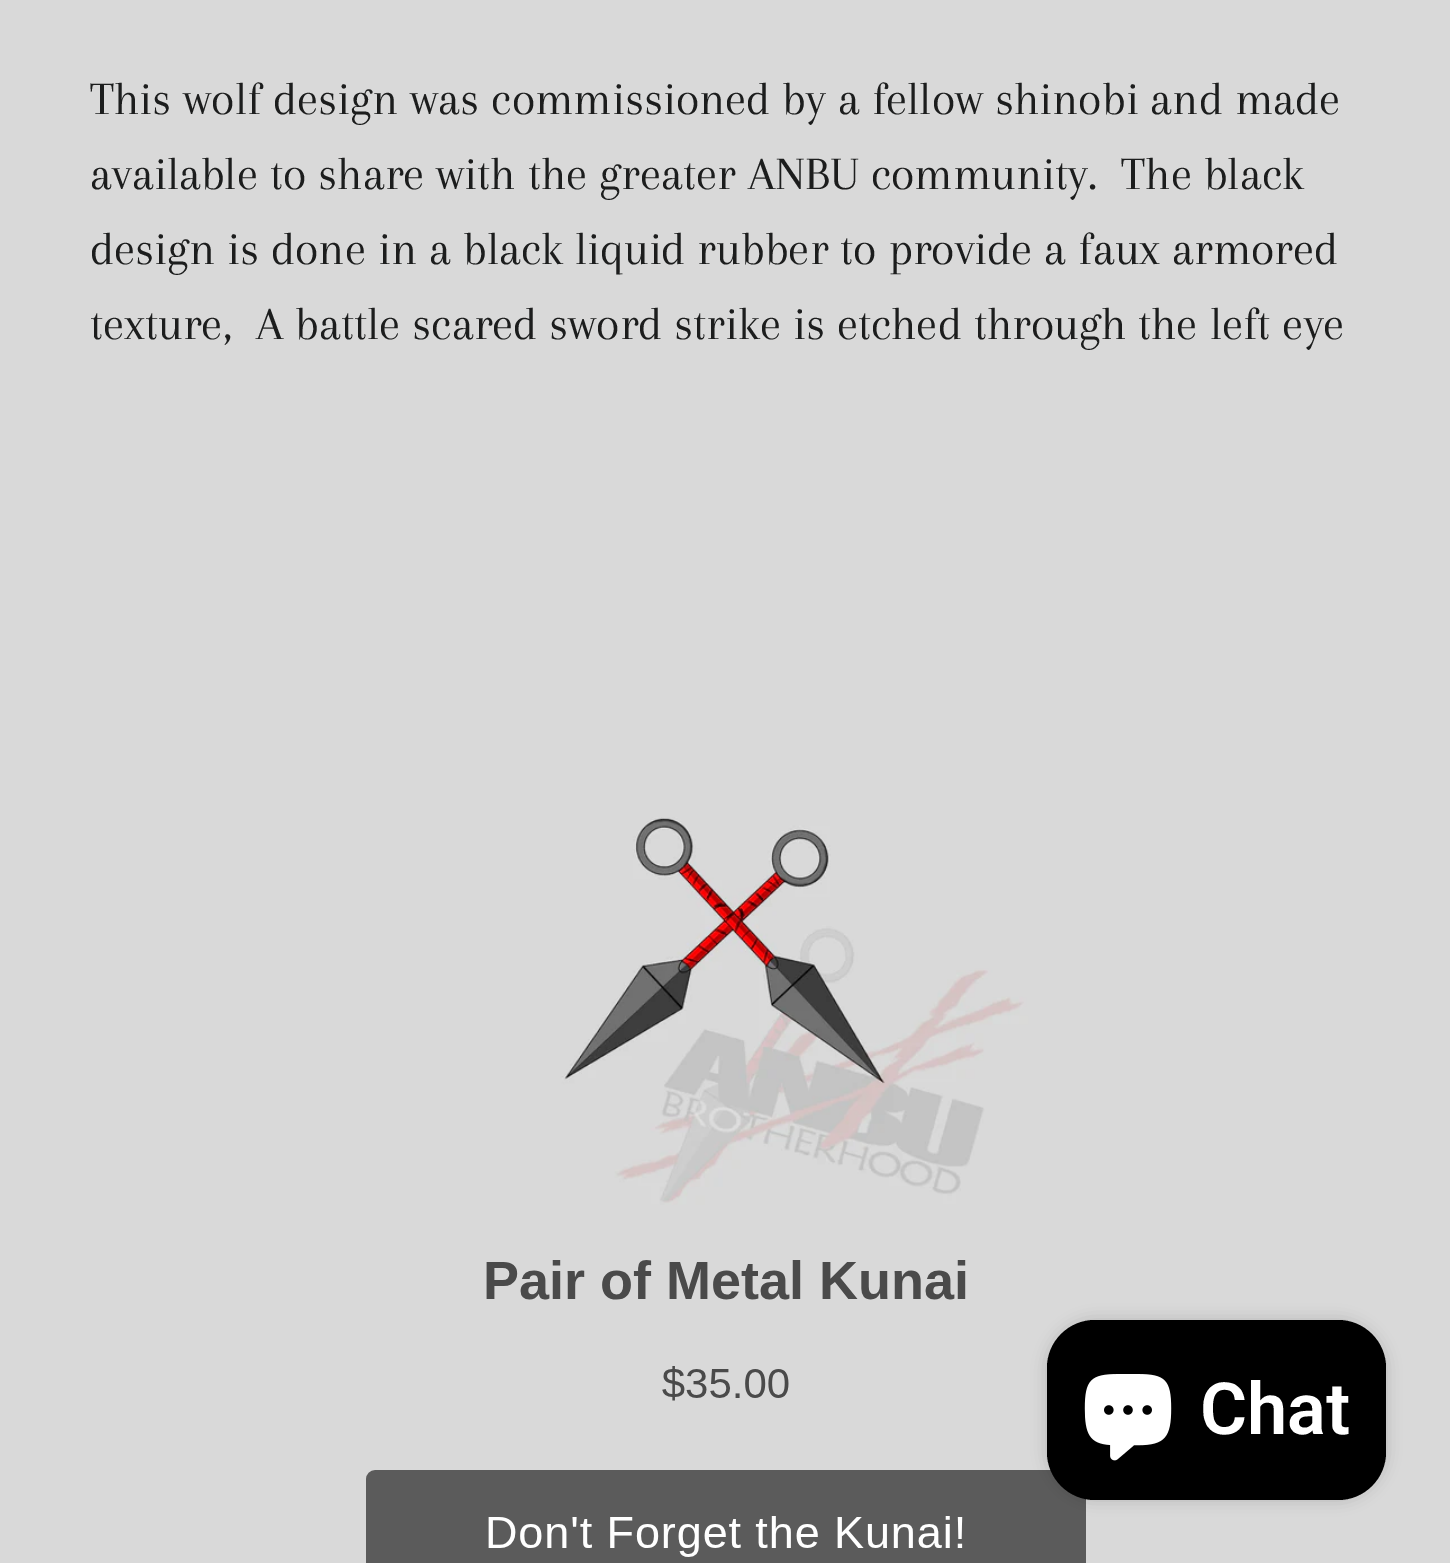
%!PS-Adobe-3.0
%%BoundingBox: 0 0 1450 1563
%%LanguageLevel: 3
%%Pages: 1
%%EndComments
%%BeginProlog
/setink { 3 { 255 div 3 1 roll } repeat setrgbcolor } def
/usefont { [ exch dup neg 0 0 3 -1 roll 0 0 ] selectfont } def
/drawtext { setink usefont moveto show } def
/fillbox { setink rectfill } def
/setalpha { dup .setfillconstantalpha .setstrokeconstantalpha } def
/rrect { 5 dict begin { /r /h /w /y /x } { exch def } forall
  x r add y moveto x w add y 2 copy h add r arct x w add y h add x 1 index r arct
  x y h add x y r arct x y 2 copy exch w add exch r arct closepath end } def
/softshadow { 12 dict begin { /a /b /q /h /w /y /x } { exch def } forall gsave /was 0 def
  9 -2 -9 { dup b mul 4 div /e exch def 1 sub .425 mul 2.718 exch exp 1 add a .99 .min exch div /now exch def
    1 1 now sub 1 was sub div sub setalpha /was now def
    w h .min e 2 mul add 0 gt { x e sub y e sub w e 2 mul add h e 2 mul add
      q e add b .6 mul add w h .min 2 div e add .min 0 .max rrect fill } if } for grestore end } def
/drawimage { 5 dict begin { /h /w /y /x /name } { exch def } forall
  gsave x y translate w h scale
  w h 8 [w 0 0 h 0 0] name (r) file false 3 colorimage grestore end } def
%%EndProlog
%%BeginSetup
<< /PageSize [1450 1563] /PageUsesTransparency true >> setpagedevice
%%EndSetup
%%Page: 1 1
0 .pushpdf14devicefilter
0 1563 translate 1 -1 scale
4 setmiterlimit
0 0 1450 1563 217 217 217 fillbox
(This wolf design was commissioned by a fellow shinobi and made) 90 114 /Arapey-Regular 48 28 29 29 drawtext
(available to share with the greater ANBU community.  The black) 90 189 /Arapey-Regular 48 28 29 29 drawtext
(design is done in a black liquid rubber to provide a faux armored) 90 264 /Arapey-Regular 48 28 29 29 drawtext
(texture,  A battle scared sword strike is etched through the left eye) 90 339 /Arapey-Regular 48 28 29 29 drawtext
(assets/img1.rgb) 366 817 720 746 drawimage
0 0 0 setink
1047 1320 339 180 48 7.5 0.15 softshadow
1047 1320 339 180 48 rrect fill
(assets/img2.rgb) 1084 1374 88 87 drawimage
(Chat) 1200 1434 /Roboto-SemiBold 72 255 255 255 drawtext
.poppdf14devicefilter showpage
%%EOF
